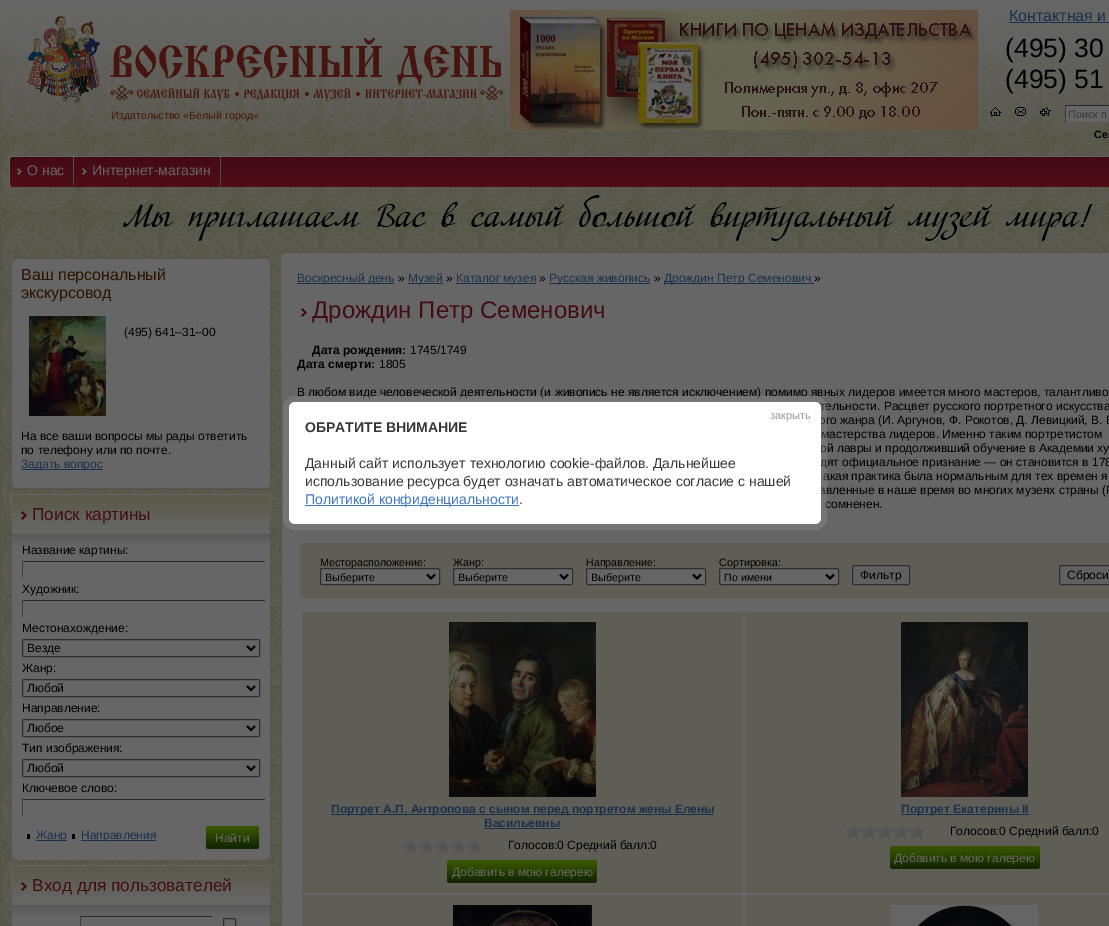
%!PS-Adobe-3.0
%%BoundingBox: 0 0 1109 926
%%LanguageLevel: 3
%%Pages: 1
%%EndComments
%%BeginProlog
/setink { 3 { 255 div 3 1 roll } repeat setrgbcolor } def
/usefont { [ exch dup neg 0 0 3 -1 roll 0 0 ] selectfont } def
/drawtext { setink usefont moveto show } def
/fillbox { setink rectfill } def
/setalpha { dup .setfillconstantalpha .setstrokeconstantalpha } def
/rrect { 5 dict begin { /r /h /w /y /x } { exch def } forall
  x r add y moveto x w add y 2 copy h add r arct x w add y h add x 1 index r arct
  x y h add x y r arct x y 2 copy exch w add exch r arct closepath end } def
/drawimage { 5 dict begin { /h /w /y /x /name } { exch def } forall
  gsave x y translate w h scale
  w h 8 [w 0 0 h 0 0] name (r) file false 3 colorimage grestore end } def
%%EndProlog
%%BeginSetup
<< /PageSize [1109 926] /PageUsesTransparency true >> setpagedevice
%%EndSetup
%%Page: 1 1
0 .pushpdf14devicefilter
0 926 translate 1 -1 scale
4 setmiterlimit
0 0 1109 926 255 255 255 fillbox
(assets/img1.rgb) 0 2 1109 924 drawimage
(assets/img2.rgb) 0 0 1109 140 drawimage
(assets/img3.rgb) 27 16 476 87 drawimage
(Издательство «Белый город») 111 119 /LiberationSans-Regular 10.7 71 21 16 drawtext
(assets/img4.rgb) 510 10 468 120 drawimage
(Контактная и) 1009 21 /LiberationSans-Regular 16 26 48 77 drawtext
1009 22 100 1 26 48 77 fillbox
(\(495\) 30) 1005 57 /LiberationSans-Regular 26.5 0 0 0 drawtext
(\(495\) 51) 1005 88 /LiberationSans-Regular 26.5 0 0 0 drawtext
(assets/img5.rgb) 990 107 11 9 drawimage
(assets/img6.rgb) 1015 107 11 9 drawimage
(assets/img7.rgb) 1040 107 11 9 drawimage
1066 106 43 15 102 102 102 fillbox
1065 105 44 1 37 37 37 fillbox
1065 121 44 1 95 95 95 fillbox
1065 105 1 17 57 57 57 fillbox
(Поиск п) 1068 118 /LiberationSans-Regular 10.7 55 55 55 drawtext
(Сег) 1094 138 /LiberationSans-Bold 10.7 0 0 0 drawtext
(assets/img8.rgb) 10 156 1099 31 drawimage
(assets/img9.rgb) 9 156 2 31 drawimage
(assets/img10.rgb) 17 168 5 7 drawimage
(assets/img11.rgb) 73 157 1 29 drawimage
(О нас) 27 175 /LiberationSans-Regular 14 102 102 102 drawtext
(assets/img10.rgb) 82 168 5 7 drawimage
(assets/img11.rgb) 220 157 1 29 drawimage
(Интернет-магазин) 92 175 /LiberationSans-Regular 14 102 102 102 drawtext
(assets/img12.rgb) 123 195 970 46 drawimage
12 259 258 229 102 102 102 fillbox
(assets/img13.rgb) 11 258 5 5 drawimage
16 258 250 1 85 84 78 fillbox
(assets/img14.rgb) 266 258 5 5 drawimage
11 263 1 221 85 84 78 fillbox
(Ваш персональный) 21 280 /LiberationSans-Regular 16 42 19 0 drawtext
(экскурсовод) 21 298 /LiberationSans-Regular 16 42 19 0 drawtext
(assets/img15.rgb) 29 316 77 100 drawimage
(\(495\) 641–31–00) 124 336 /LiberationSans-Regular 12 0 0 0 drawtext
(На все ваши вопросы мы рады ответить) 21 440 /LiberationSans-Regular 12 0 0 0 drawtext
(по телефону или по почте.) 21 454 /LiberationSans-Regular 12 0 0 0 drawtext
21 469 82 1 26 48 77 fillbox
(Задать вопрос) 21 468 /LiberationSans-Regular 12 26 48 77 drawtext
270 263 1 221 85 84 78 fillbox
(assets/img16.rgb) 11 484 5 5 drawimage
16 488 250 1 85 84 78 fillbox
(assets/img17.rgb) 266 484 5 5 drawimage
(assets/img18.rgb) 11 494 6 40 drawimage
(assets/img19.rgb) 17 494 248 40 drawimage
(assets/img20.rgb) 21 511 6 9 drawimage
(Поиск картины) 32 520 /LiberationSans-Regular 17.25 67 11 20 drawtext
(assets/img21.rgb) 265 494 6 40 drawimage
12 546 258 308 102 102 102 fillbox
270 534 1 320 85 84 78 fillbox
11 534 1 320 85 84 78 fillbox
(assets/img22.rgb) 12 534 258 12 drawimage
(Название картины:) 22 554 /LiberationSans-Regular 12 0 0 0 drawtext
22 561 244 1 43 43 43 fillbox
265 561 1 1 102 102 102 fillbox
22 561 1 17 64 64 64 fillbox
(Художник:) 22 593 /LiberationSans-Regular 12 0 0 0 drawtext
22 600 244 1 43 43 43 fillbox
265 600 1 1 102 102 102 fillbox
22 600 1 17 64 64 64 fillbox
(Местонахождение:) 22 632 /LiberationSans-Regular 12 0 0 0 drawtext
47 47 47 setink
22.5 639.5 237 17 1.5 rrect stroke
0 0 0 setink
2 setlinewidth
247 646 moveto 251 650 lineto 255 646 lineto stroke
(Везде) 27 652 /LiberationSans-Regular 12 0 0 0 drawtext
(Жанр:) 22 672 /LiberationSans-Regular 12 0 0 0 drawtext
47 47 47 setink
1 setlinewidth
22.5 679.5 237 17 1.5 rrect stroke
0 0 0 setink
2 setlinewidth
247 686 moveto 251 690 lineto 255 686 lineto stroke
(Любой) 27 692 /LiberationSans-Regular 12 0 0 0 drawtext
(Направление:) 22 712 /LiberationSans-Regular 12 0 0 0 drawtext
47 47 47 setink
1 setlinewidth
22.5 719.5 237 17 1.5 rrect stroke
0 0 0 setink
2 setlinewidth
247 726 moveto 251 730 lineto 255 726 lineto stroke
(Любое) 27 732 /LiberationSans-Regular 12 0 0 0 drawtext
(Тип изображения:) 22 752 /LiberationSans-Regular 12 0 0 0 drawtext
47 47 47 setink
1 setlinewidth
22.5 759.5 237 17 1.5 rrect stroke
0 0 0 setink
2 setlinewidth
247 766 moveto 251 770 lineto 255 766 lineto stroke
(Любой) 27 772 /LiberationSans-Regular 12 0 0 0 drawtext
(Ключевое слово:) 22 792 /LiberationSans-Regular 12 0 0 0 drawtext
22 799 244 1 43 43 43 fillbox
265 799 1 1 102 102 102 fillbox
22 799 1 17 64 64 64 fillbox
27 834 3 5 0 0 0 fillbox
36 840 31 1 26 48 77 fillbox
(Жанр) 36 839 /LiberationSans-Regular 12 26 48 77 drawtext
72 834 3 5 0 0 0 fillbox
81 840 75 1 26 48 77 fillbox
(Направления) 81 839 /LiberationSans-Regular 12 26 48 77 drawtext
(assets/img23.rgb) 205 825 55 25 drawimage
(Найти) 215 842 /LiberationSans-Regular 12 102 102 102 drawtext
(assets/img24.rgb) 11 854 6 6 drawimage
17 854 248 6 102 102 102 fillbox
(assets/img25.rgb) 265 854 6 6 drawimage
(assets/img18.rgb) 11 865 6 40 drawimage
(assets/img19.rgb) 17 865 248 40 drawimage
(assets/img20.rgb) 21 882 6 9 drawimage
(Вход для пользователей) 32 891 /LiberationSans-Regular 17.25 67 11 20 drawtext
(assets/img21.rgb) 265 865 6 40 drawimage
12 917 258 9 102 102 102 fillbox
270 905 1 21 85 84 78 fillbox
11 905 1 21 85 84 78 fillbox
(assets/img22.rgb) 12 905 258 12 drawimage
80 916 132 1 43 43 43 fillbox
80 916 1 10 64 64 64 fillbox
47 47 47 setink
1 setlinewidth
223.5 918.5 12 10 1.5 rrect stroke
281 253 828 673 102 102 102 fillbox
(assets/img26.rgb) 281 253 5 5 drawimage
281 511 1 415 85 84 78 fillbox
(assets/img27.rgb) 281 259 1 252 drawimage
297 283 97 1 26 48 77 fillbox
(Воскресный день) 297 282 /LiberationSans-Regular 12 26 48 77 drawtext
(») 398 282 /LiberationSans-Regular 12 0 0 0 drawtext
408 283 35 1 26 48 77 fillbox
(Музей) 408 282 /LiberationSans-Regular 12 26 48 77 drawtext
(») 446 282 /LiberationSans-Regular 12 0 0 0 drawtext
456 283 80 1 26 48 77 fillbox
(Каталог музея) 456 282 /LiberationSans-Regular 12 26 48 77 drawtext
(») 539 282 /LiberationSans-Regular 12 0 0 0 drawtext
549 283 101 1 26 48 77 fillbox
(Русская живопись) 549 282 /LiberationSans-Regular 12 26 48 77 drawtext
(») 654 282 /LiberationSans-Regular 12 0 0 0 drawtext
664 283 150 1 26 48 77 fillbox
(Дрождин Петр Семенович) 664 282 /LiberationSans-Regular 12 26 48 77 drawtext
(») 814 282 /LiberationSans-Regular 12 0 0 0 drawtext
(assets/img28.rgb) 301 308 6 9 drawimage
(Дрождин Петр Семенович) 312 318 /LiberationSans-Regular 24 67 11 20 drawtext
(Дата рождения:) 312 354 /LiberationSans-Bold 12 0 0 0 drawtext
(1745/1749) 410 354 /LiberationSans-Regular 12 0 0 0 drawtext
(Дата смерти:) 297 368 /LiberationSans-Bold 12 0 0 0 drawtext
(1805) 379 368 /LiberationSans-Regular 12 0 0 0 drawtext
(В любом виде человеческой деятельности \(и живопись не является исключением\) помимо явных лидеров имеется много мастеров, талантливо) 297 396 /LiberationSans-Regular 12 0 0 0 drawtext
(тельности. Расцвет русского портретного искусства) 820 410 /LiberationSans-Regular 12 0 0 0 drawtext
(ого жанра \(И. Аргунов, Ф. Рокотов, Д. Левицкий, В. Б) 819 424 /LiberationSans-Regular 12 0 0 0 drawtext
(мастерства лидеров. Именно таким портретистом) 821 438 /LiberationSans-Regular 12 0 0 0 drawtext
(ой лавры и продолживший обучение в Академии ху) 820 452 /LiberationSans-Regular 12 0 0 0 drawtext
(дят официальное признание — он становится в 178) 820 466 /LiberationSans-Regular 12 0 0 0 drawtext
(акая практика была нормальным для тех времен я) 823 480 /LiberationSans-Regular 12 0 0 0 drawtext
(авленные в наше время во многих музеях страны \(Р) 819 494 /LiberationSans-Regular 12 0 0 0 drawtext
(сомненен.) 825 508 /LiberationSans-Regular 12 0 0 0 drawtext
300 543 809 55 95 94 86 fillbox
(Месторасположение:) 320 566 /LiberationSans-Regular 10.7 0 0 0 drawtext
102 102 102 setink
320.5 568.5 119 16 1.5 rrect gsave fill grestore
47 47 47 setink
stroke
0 0 0 setink
2 setlinewidth
427 574.5 moveto 431 578.5 lineto 435 574.5 lineto stroke
(Выберите) 325 581 /LiberationSans-Regular 10.7 0 0 0 drawtext
(Жанр:) 453 566 /LiberationSans-Regular 10.7 0 0 0 drawtext
102 102 102 setink
453.5 568.5 119 16 1.5 rrect gsave fill grestore
47 47 47 setink
1 setlinewidth
stroke
0 0 0 setink
2 setlinewidth
560 574.5 moveto 564 578.5 lineto 568 574.5 lineto stroke
(Выберите) 458 581 /LiberationSans-Regular 10.7 0 0 0 drawtext
(Направление:) 586 566 /LiberationSans-Regular 10.7 0 0 0 drawtext
102 102 102 setink
586.5 568.5 119 16 1.5 rrect gsave fill grestore
47 47 47 setink
1 setlinewidth
stroke
0 0 0 setink
2 setlinewidth
693 574.5 moveto 697 578.5 lineto 701 574.5 lineto stroke
(Выберите) 591 581 /LiberationSans-Regular 10.7 0 0 0 drawtext
(Сортировка:) 719 566 /LiberationSans-Regular 10.7 0 0 0 drawtext
102 102 102 setink
719.5 568.5 119 16 1.5 rrect gsave fill grestore
47 47 47 setink
1 setlinewidth
stroke
0 0 0 setink
2 setlinewidth
826 574.5 moveto 830 578.5 lineto 834 574.5 lineto stroke
(По имени) 724 581 /LiberationSans-Regular 10.7 0 0 0 drawtext
96 96 96 setink
852.5 565.5 57 19 1.5 rrect gsave fill grestore
47 47 47 setink
1 setlinewidth
stroke
(Фильтр) 860 579 /LiberationSans-Regular 12 0 0 0 drawtext
96 96 96 setink
1059.5 565.5 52 19 1.5 rrect gsave fill grestore
47 47 47 setink
stroke
(Сброси) 1067 579 /LiberationSans-Regular 12 0 0 0 drawtext
302 612 441 281 95 94 86 fillbox
(assets/img29.rgb) 449 622 147 175 drawimage
331 814 383 1 26 48 77 fillbox
(Портрет А.П. Антропова с сыном перед портретом жены Елены) 331 813 /LiberationSans-Bold 12 26 48 77 drawtext
(Васильевны) 484 827 /LiberationSans-Bold 12 26 48 77 drawtext
484 828 76 1 26 48 77 fillbox
(assets/img30.rgb) 402 838 8 15 drawimage
(assets/img31.rgb) 410 838 8 15 drawimage
(assets/img30.rgb) 418 838 8 15 drawimage
(assets/img31.rgb) 426 838 8 15 drawimage
(assets/img30.rgb) 434 838 8 15 drawimage
(assets/img31.rgb) 442 838 8 15 drawimage
(assets/img30.rgb) 450 838 8 15 drawimage
(assets/img31.rgb) 458 838 8 15 drawimage
(assets/img30.rgb) 466 838 8 15 drawimage
(assets/img31.rgb) 474 838 8 15 drawimage
(Голосов:0 Средний балл:0) 508 849 /LiberationSans-Regular 12 0 0 0 drawtext
(assets/img32.rgb) 447 860 150 23 drawimage
(Добавить в мою галерею) 452 876 /LiberationSans-Regular 12 102 102 102 drawtext
745 612 364 281 95 94 86 fillbox
(assets/img33.rgb) 901 622 127 175 drawimage
901 814 128 1 26 48 77 fillbox
(Портрет Екатерины II) 901 813 /LiberationSans-Bold 12 26 48 77 drawtext
(assets/img30.rgb) 845 824 8 15 drawimage
(assets/img31.rgb) 853 824 8 15 drawimage
(assets/img30.rgb) 861 824 8 15 drawimage
(assets/img31.rgb) 869 824 8 15 drawimage
(assets/img30.rgb) 877 824 8 15 drawimage
(assets/img31.rgb) 885 824 8 15 drawimage
(assets/img30.rgb) 893 824 8 15 drawimage
(assets/img31.rgb) 901 824 8 15 drawimage
(assets/img30.rgb) 909 824 8 15 drawimage
(assets/img31.rgb) 917 824 8 15 drawimage
(Голосов:0 Средний балл:0) 950 835 /LiberationSans-Regular 12 0 0 0 drawtext
(assets/img32.rgb) 890 846 150 23 drawimage
(Добавить в мою галерею) 894 862 /LiberationSans-Regular 12 102 102 102 drawtext
302 895 441 31 95 94 86 fillbox
(assets/img34.rgb) 453 905 139 21 drawimage
745 895 364 31 95 94 86 fillbox
(assets/img35.rgb) 891 905 147 21 drawimage
0.3 setalpha
153 153 153 setink
6 setlinewidth
286 399 538 128 9 rrect stroke
1 setalpha
255 255 255 setink
289 402 532 122 6 rrect fill
(закрыть) 770 419 /LiberationSans-Regular 11 153 153 153 drawtext
(ОБРАТИТЕ ВНИМАНИЕ) 305 432 /LiberationSans-Bold 14 55 55 55 drawtext
(Данный сайт использует технологию cookie-файлов. Дальнейшее) 305 468 /LiberationSans-Regular 14 55 55 55 drawtext
(использование ресурса будет означать автоматическое согласие с нашей) 305 486 /LiberationSans-Regular 14 55 55 55 drawtext
305 505 214 1 64 119 192 fillbox
(Политикой конфиденциальности) 305 504 /LiberationSans-Regular 14 64 119 192 drawtext
(.) 519 504 /LiberationSans-Regular 14 55 55 55 drawtext
.poppdf14devicefilter showpage
%%EOF
